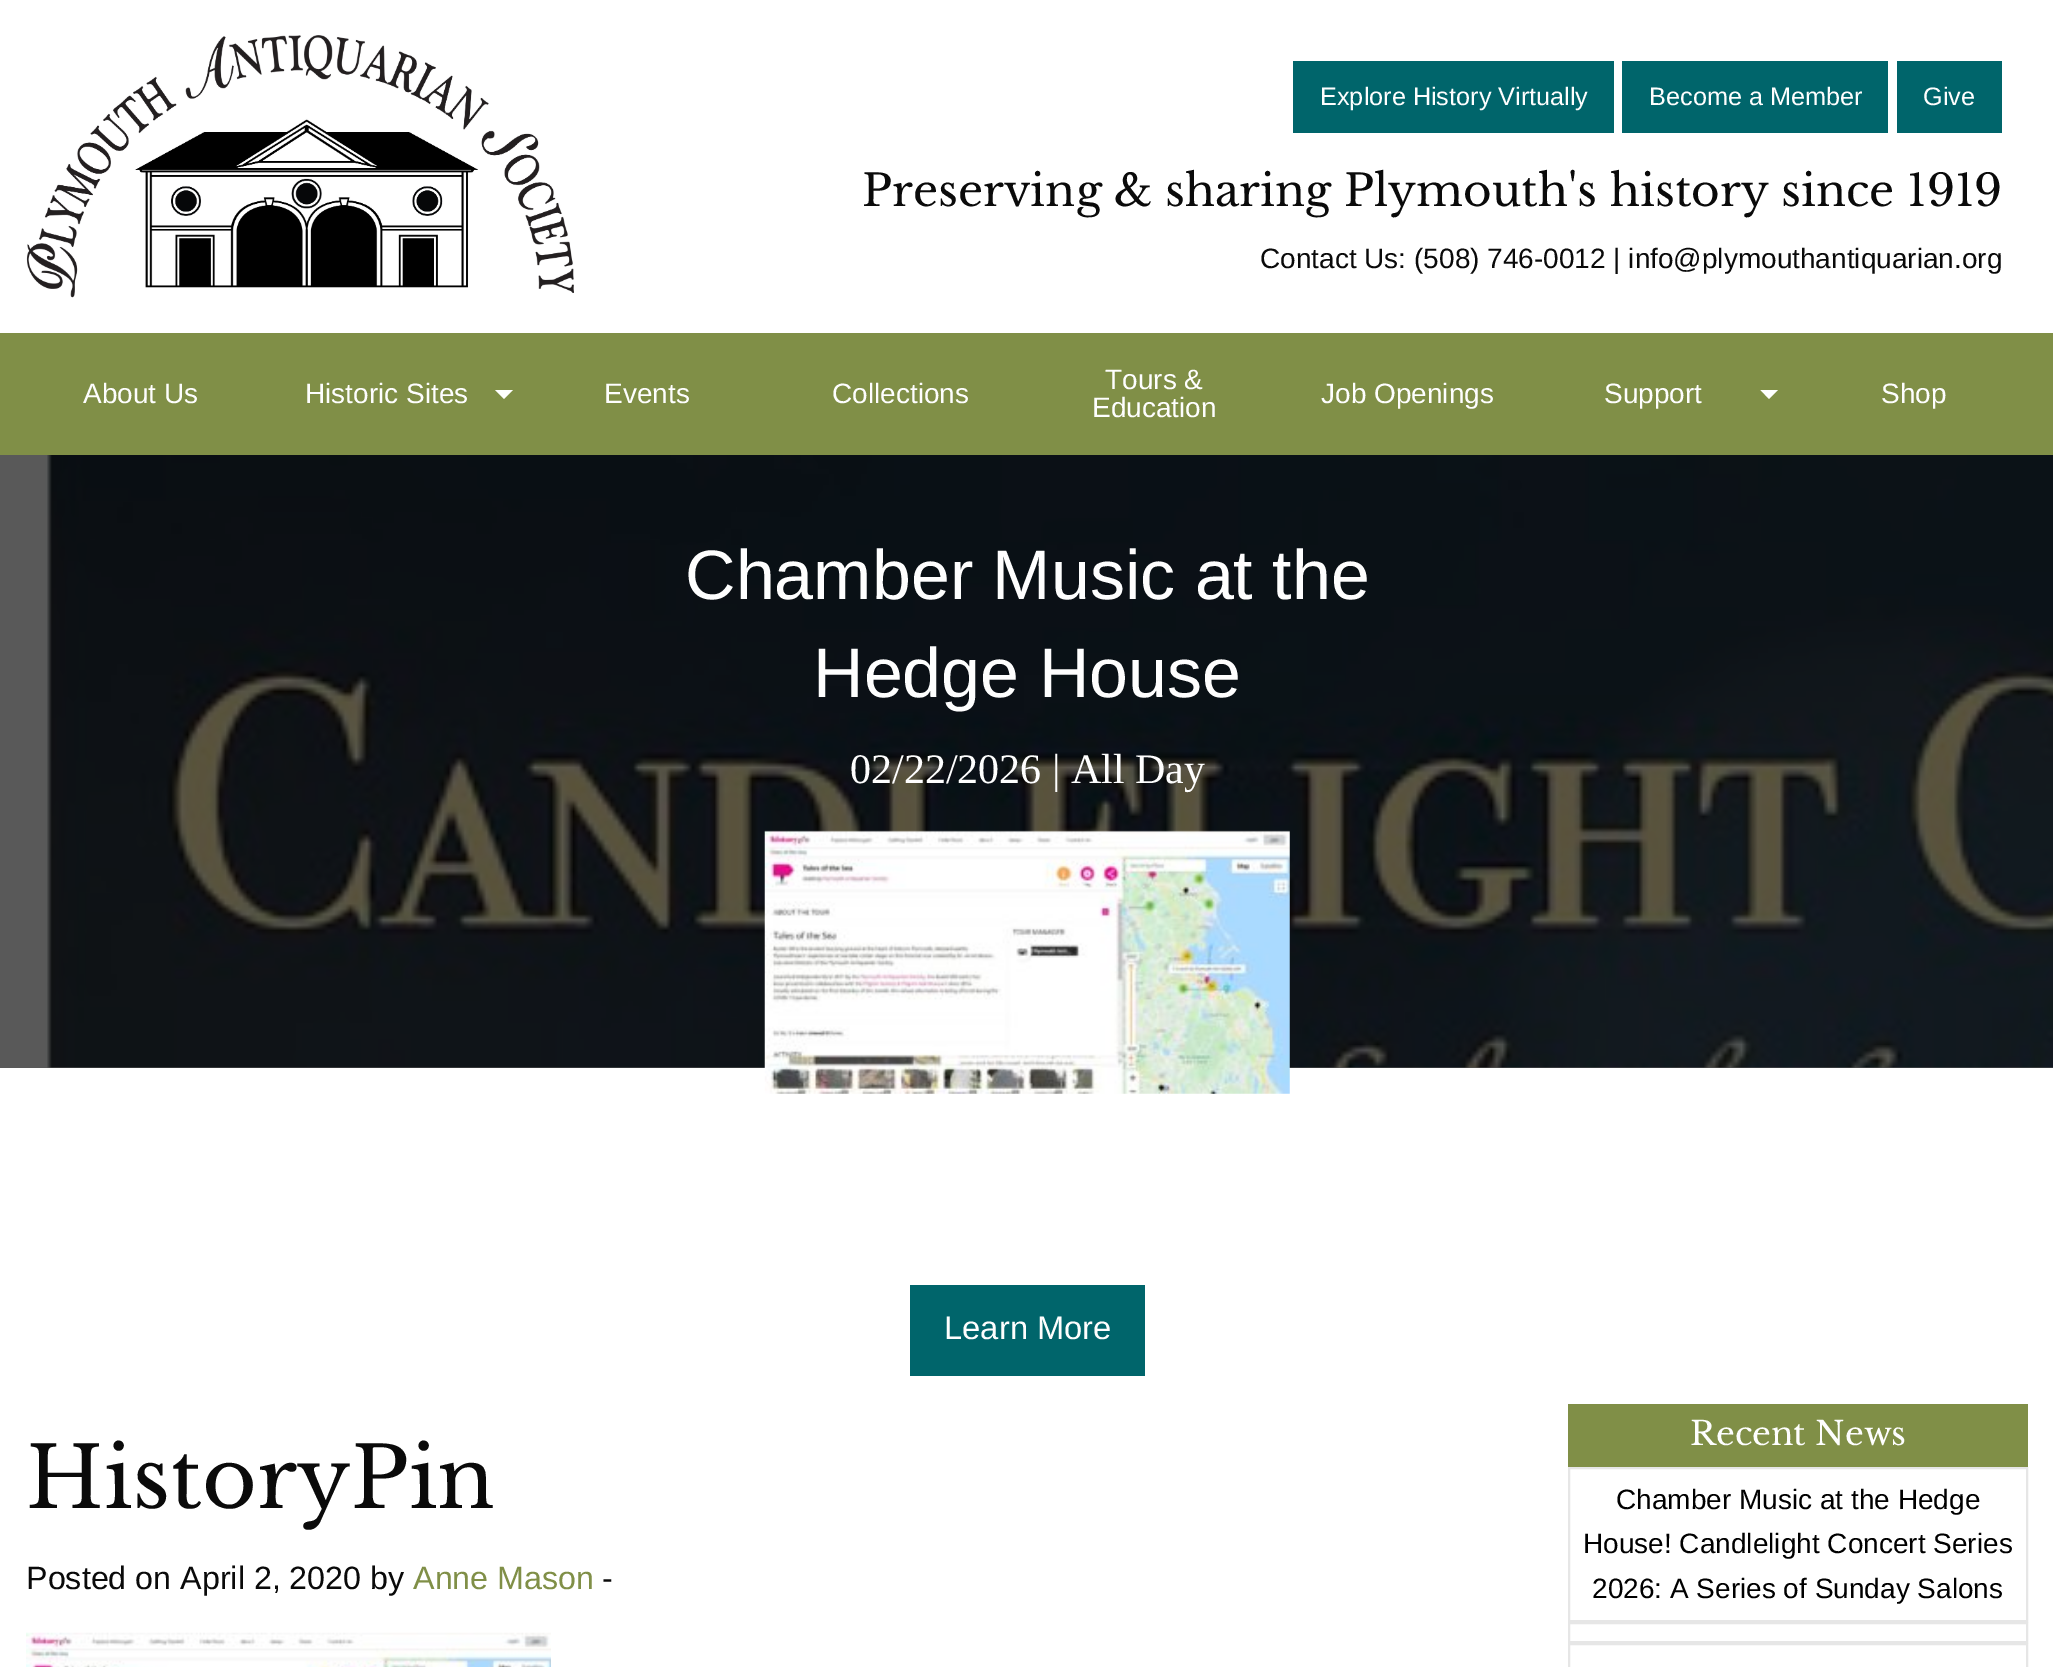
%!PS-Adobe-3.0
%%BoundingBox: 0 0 2053 1667
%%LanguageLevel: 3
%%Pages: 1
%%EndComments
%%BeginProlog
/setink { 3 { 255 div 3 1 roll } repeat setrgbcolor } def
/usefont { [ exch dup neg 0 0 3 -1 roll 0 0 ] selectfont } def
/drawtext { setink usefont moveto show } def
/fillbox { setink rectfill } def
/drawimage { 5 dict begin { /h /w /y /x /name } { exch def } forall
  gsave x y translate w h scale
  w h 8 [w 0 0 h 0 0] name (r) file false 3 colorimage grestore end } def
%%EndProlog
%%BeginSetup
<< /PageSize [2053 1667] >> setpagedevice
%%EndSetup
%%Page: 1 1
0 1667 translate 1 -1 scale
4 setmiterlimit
0 0 2053 1667 255 255 255 fillbox
0 455 2053 613 89 89 89 fillbox
(assets/img1.rgb) 26 35 548 263 drawimage
1293 61 321 72 0 101 107 fillbox
(Explore History Virtually) 1320 105 /LiberationSans-Regular 25.25 254 254 254 drawtext
1622 61 266 72 0 101 107 fillbox
(Become a Member) 1649 105 /LiberationSans-Regular 25.25 254 254 254 drawtext
1897 61 105 72 0 101 107 fillbox
(Give) 1923 105 /LiberationSans-Regular 25.25 254 254 254 drawtext
(Preserving & sharing Plymouth's history since 1919) 862 206 /LibreBaskerville-Regular 43.75 10 10 10 drawtext
(Contact Us: \(508\) 746-0012 | info@plymouthantiquarian.org) 1260 268 /LiberationSans-Regular 28 10 10 10 drawtext
0 333 2053 122 128 143 71 fillbox
(About Us) 83 403 /LiberationSans-Regular 28 254 254 254 drawtext
(Historic Sites) 305 403 /LiberationSans-Regular 28 254 254 254 drawtext
255 255 255 setink
495 390 moveto 513 390 lineto 504 399 lineto closepath fill
(Events) 604 403 /LiberationSans-Regular 28 254 254 254 drawtext
(Collections) 832 403 /LiberationSans-Regular 28 254 254 254 drawtext
(Tours &) 1105 389 /LiberationSans-Regular 28 254 254 254 drawtext
(Education) 1092 417 /LiberationSans-Regular 28 254 254 254 drawtext
(Job Openings) 1321 403 /LiberationSans-Regular 28 254 254 254 drawtext
(Support) 1604 403 /LiberationSans-Regular 28 254 254 254 drawtext
255 255 255 setink
1760.5 390 moveto 1778 390 lineto 1769 399 lineto closepath fill
(Shop) 1881 403 /LiberationSans-Regular 28 254 254 254 drawtext
(assets/img2.rgb) 45 455 2008 613 drawimage
(Chamber Music at the) 685 599 /LiberationSans-Regular 70 254 254 254 drawtext
(Hedge House) 813 697 /LiberationSans-Regular 70 254 254 254 drawtext
(02/22/2026 | All Day) 850 783 /LiberationSerif-Regular 42 254 254 254 drawtext
(assets/img3.rgb) 764 830 526 264 drawimage
910 1285 235 91 0 101 107 fillbox
(Learn More) 944 1339 /LiberationSans-Regular 32.75 254 254 254 drawtext
(HistoryPin) 26 1508 /LibreBaskerville-Regular 84 10 10 10 drawtext
(Posted on April 2, 2020 by) 26 1589 /LiberationSans-Regular 32.25 10 10 10 drawtext
(Anne Mason) 413 1589 /LiberationSans-Regular 32.25 128 143 71 drawtext
(-) 602 1589 /LiberationSans-Regular 32.25 10 10 10 drawtext
(assets/img4.rgb) 26 1632 525 35 drawimage
1568 1404 460 63 128 143 71 fillbox
(Recent News) 1690 1445 /LibreBaskerville-Regular 32.75 254 254 254 drawtext
230 230 230 setink
2 setlinewidth
1569 1468 458 153 rectstroke
(Chamber Music at the Hedge) 1616 1509 /LiberationSans-Regular 28 0 0 0 drawtext
(House! Candlelight Concert Series) 1583 1553 /LiberationSans-Regular 28 0 0 0 drawtext
(2026: A Series of Sunday Salons) 1592 1598 /LiberationSans-Regular 28 0 0 0 drawtext
230 230 230 setink
1569 1623 458 19 rectstroke
1569 1644 458 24 rectstroke
showpage
%%EOF
